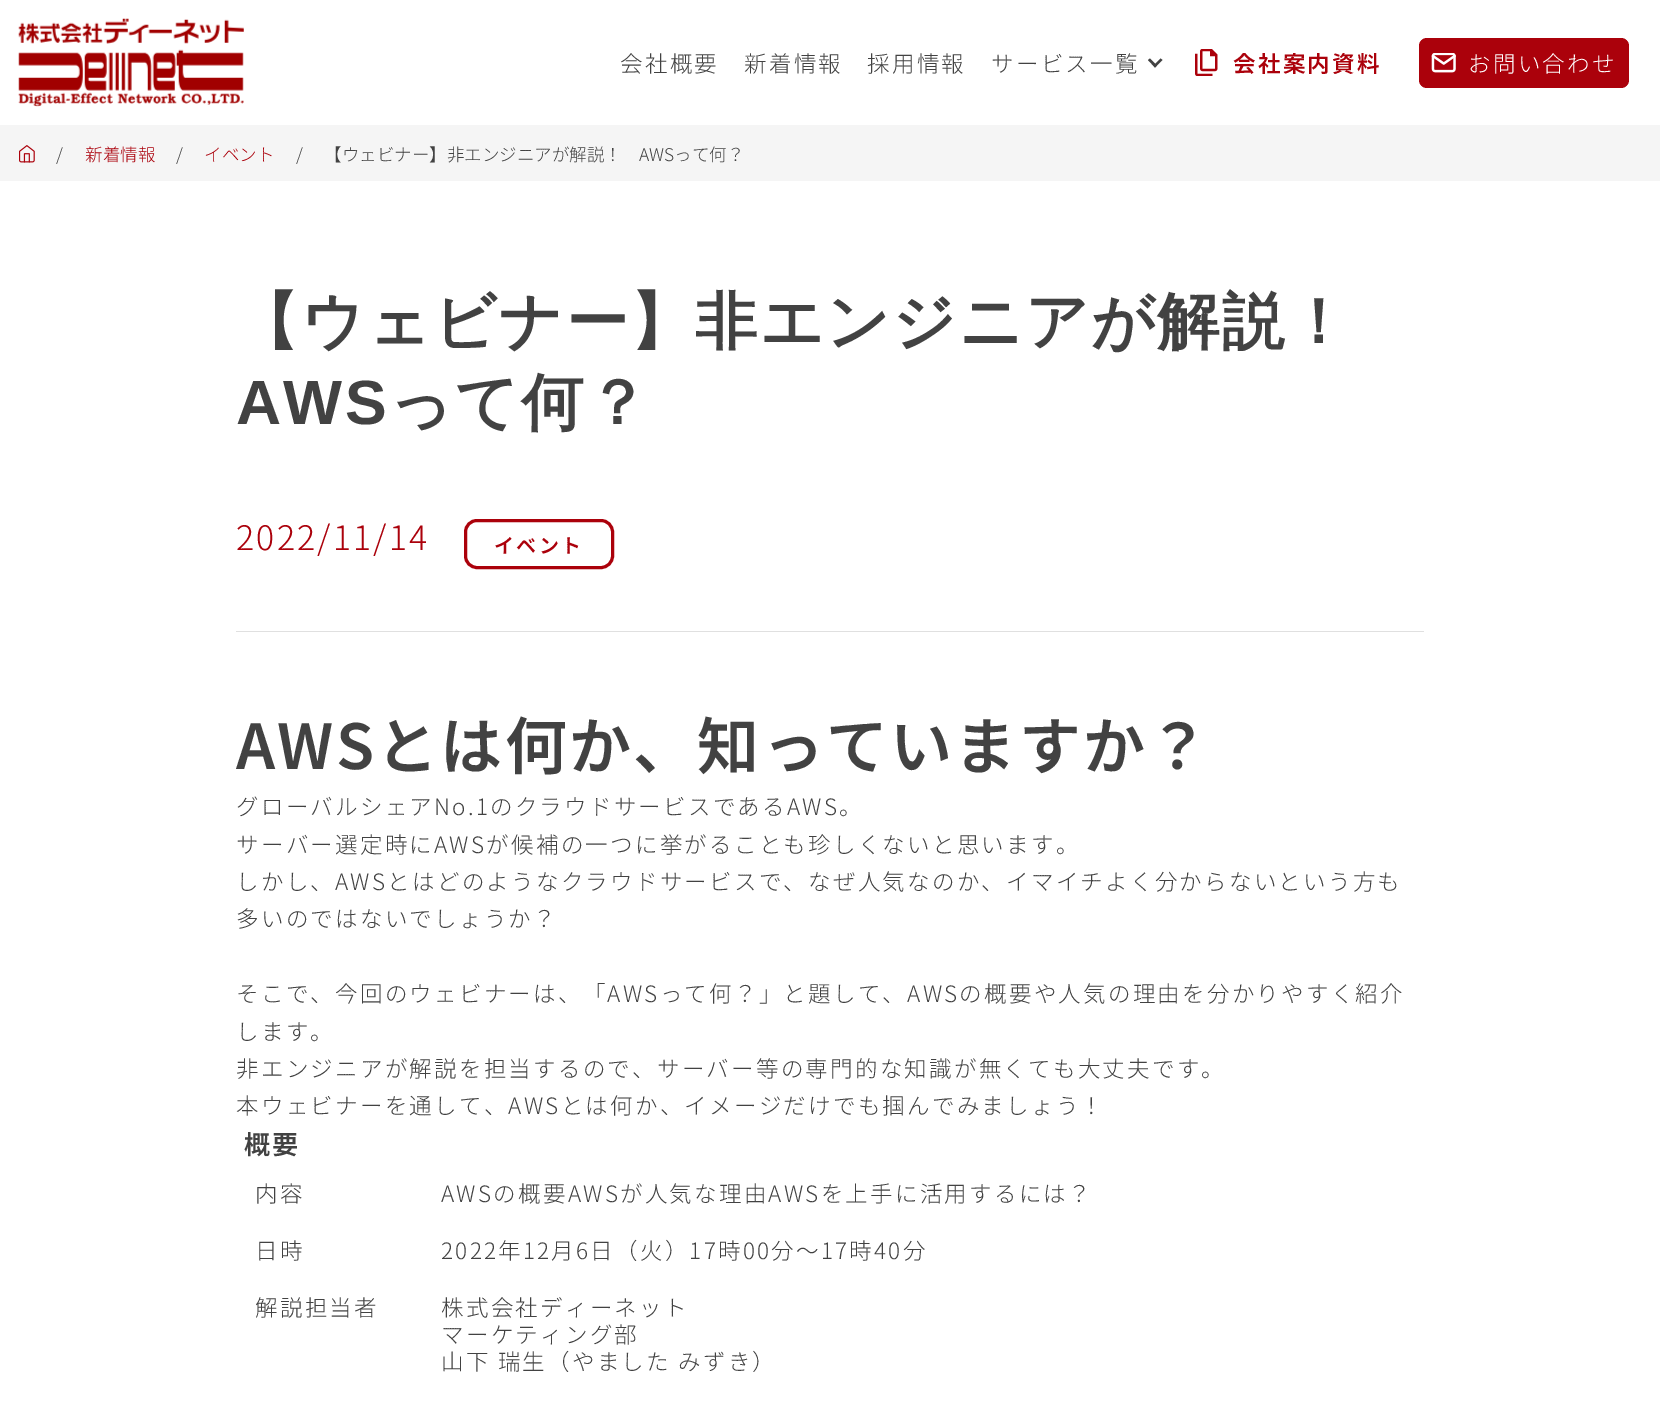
%!PS-Adobe-3.0
%%BoundingBox: 0 0 1660 1401
%%LanguageLevel: 3
%%Pages: 1
%%EndComments
%%BeginProlog
/setink { 3 { 255 div 3 1 roll } repeat setrgbcolor } def
/usefont { [ exch dup neg 0 0 3 -1 roll 0 0 ] selectfont } def
/drawtext { setink usefont moveto show } def
/fillbox { setink rectfill } def
/rrect { 5 dict begin { /r /h /w /y /x } { exch def } forall
  x r add y moveto x w add y 2 copy h add r arct x w add y h add x 1 index r arct
  x y h add x y r arct x y 2 copy exch w add exch r arct closepath end } def
/drawimage { 5 dict begin { /h /w /y /x /name } { exch def } forall
  gsave x y translate w h scale
  w h 8 [w 0 0 h 0 0] name (r) file false 3 colorimage grestore end } def
%%EndProlog
%%BeginSetup
<< /PageSize [1660 1401] >> setpagedevice
%%EndSetup
%%Page: 1 1
0 1401 translate 1 -1 scale
4 setmiterlimit
0 0 1660 1401 255 255 255 fillbox
(assets/img1.rgb) 18 18 226 89 drawimage
/NotoSansJP-Light 22.5 usefont
66 66 66 setink
620 72 moveto 2.25 0 (会社概要) ashow
744 72 moveto 2.25 0 (新着情報) ashow
867 72 moveto 2.25 0 (採用情報) ashow
991 72 moveto 2.25 0 (サービス一覧) ashow
1162.5 60 moveto 1155 67.5 lineto 1153.5 65.5 lineto 1160.5 58.5 lineto closepath fill
1157 65.5 moveto 1155 67.5 lineto 1148 60 lineto 1150 58.5 lineto closepath fill
(assets/img2.rgb) 1195 49 23 27 drawimage
/NotoSansJP-SemiBold 22.5 usefont
171 1 11 setink
1233 72 moveto 2.25 0 (会社案内資料) ashow
1419 38 210 50 8 rrect fill
(assets/img3.rgb) 1431 53 25 20 drawimage
/NotoSansJP-Light 22.5 usefont
255 255 255 setink
1468 72 moveto 2.25 0 (お問い合わせ) ashow
0 125 1660 56 245 245 245 fillbox
(assets/img4.rgb) 19 145 16 18 drawimage
(/) 56 161 /NotoSansJP-Light 17.5 66 66 66 drawtext
(新着情報) 85 161 /NotoSansJP-Light 17.5 171 1 11 drawtext
(/) 176 161 /NotoSansJP-Light 17.5 66 66 66 drawtext
(イベント) 204 161 /NotoSansJP-Light 17.5 171 1 11 drawtext
(/) 296 161 /NotoSansJP-Light 17.5 66 66 66 drawtext
(【ウェビナー】非エンジニアが解説！　AWSって何？) 324 161 /NotoSansJP-Light 17.5 66 66 66 drawtext
/WenQuanYiZenHei-Bold 62.5 usefont
236 343 moveto 2.25 0 (【ウェビナー】非エンジニアが解説！) ashow
/LiberationSans-Bold 62.5 usefont
236 424 moveto 2.25 0 (AWS) ashow
/WenQuanYiZenHei-Bold 62.5 usefont
389 424 moveto 2.25 0 (って何？) ashow
/NotoSansJP-Light 33.75 usefont
171 1 11 setink
236 550 moveto 2.25 0 (2022/11/14) ashow
3 setlinewidth
465.5 520.5 147 47 11.5 rrect stroke
/NotoSansJP-SemiBold 20 usefont
494 553 moveto 2.25 0 (イベント) ashow
236 631 1188 1 224 224 224 fillbox
/NotoSansJP-SemiBold 62 usefont
66 66 66 setink
236 769 moveto 2.25 0 (AWSとは何か、知っていますか？) ashow
/NotoSansJP-Light 22.5 usefont
236 815 moveto 2.25 0 (グローバルシェアNo.1のクラウドサービスであるAWS。) ashow
236 853 moveto 2.25 0 (サーバー選定時にAWSが候補の一つに挙がることも珍しくないと思います。) ashow
236 890 moveto 2.25 0 (しかし、AWSとはどのようなクラウドサービスで、なぜ人気なのか、イマイチよく分からないという方も) ashow
236 927 moveto 2.25 0 (多いのではないでしょうか？) ashow
236 1002 moveto 2.25 0 (そこで、今回のウェビナーは、「AWSって何？」と題して、AWSの概要や人気の理由を分かりやすく紹介) ashow
236 1040 moveto 2.25 0 (します。) ashow
236 1077 moveto 2.25 0 (非エンジニアが解説を担当するので、サーバー等の専門的な知識が無くても大丈夫です。) ashow
236 1114 moveto 2.25 0 (本ウェビナーを通して、AWSとは何か、イメージだけでも掴んでみましょう！) ashow
/NotoSansJP-SemiBold 26 usefont
244 1154 moveto 2.25 0 (概要) ashow
/NotoSansJP-Light 22.5 usefont
255 1202 moveto 2.25 0 (内容) ashow
441 1202 moveto 2.25 0 (AWSの概要AWSが人気な理由AWSを上手に活用するには？) ashow
255 1259 moveto 2.25 0 (日時) ashow
441 1259 moveto 2.25 0 (2022年12月6日（火）17時00分～17時40分) ashow
255 1316 moveto 2.25 0 (解説担当者) ashow
441 1316 moveto 2.25 0 (株式会社ディーネット) ashow
441 1343 moveto 2.25 0 (マーケティング部) ashow
441 1370 moveto 2.25 0 (山下 瑞生（やました みずき）) ashow
showpage
%%EOF
